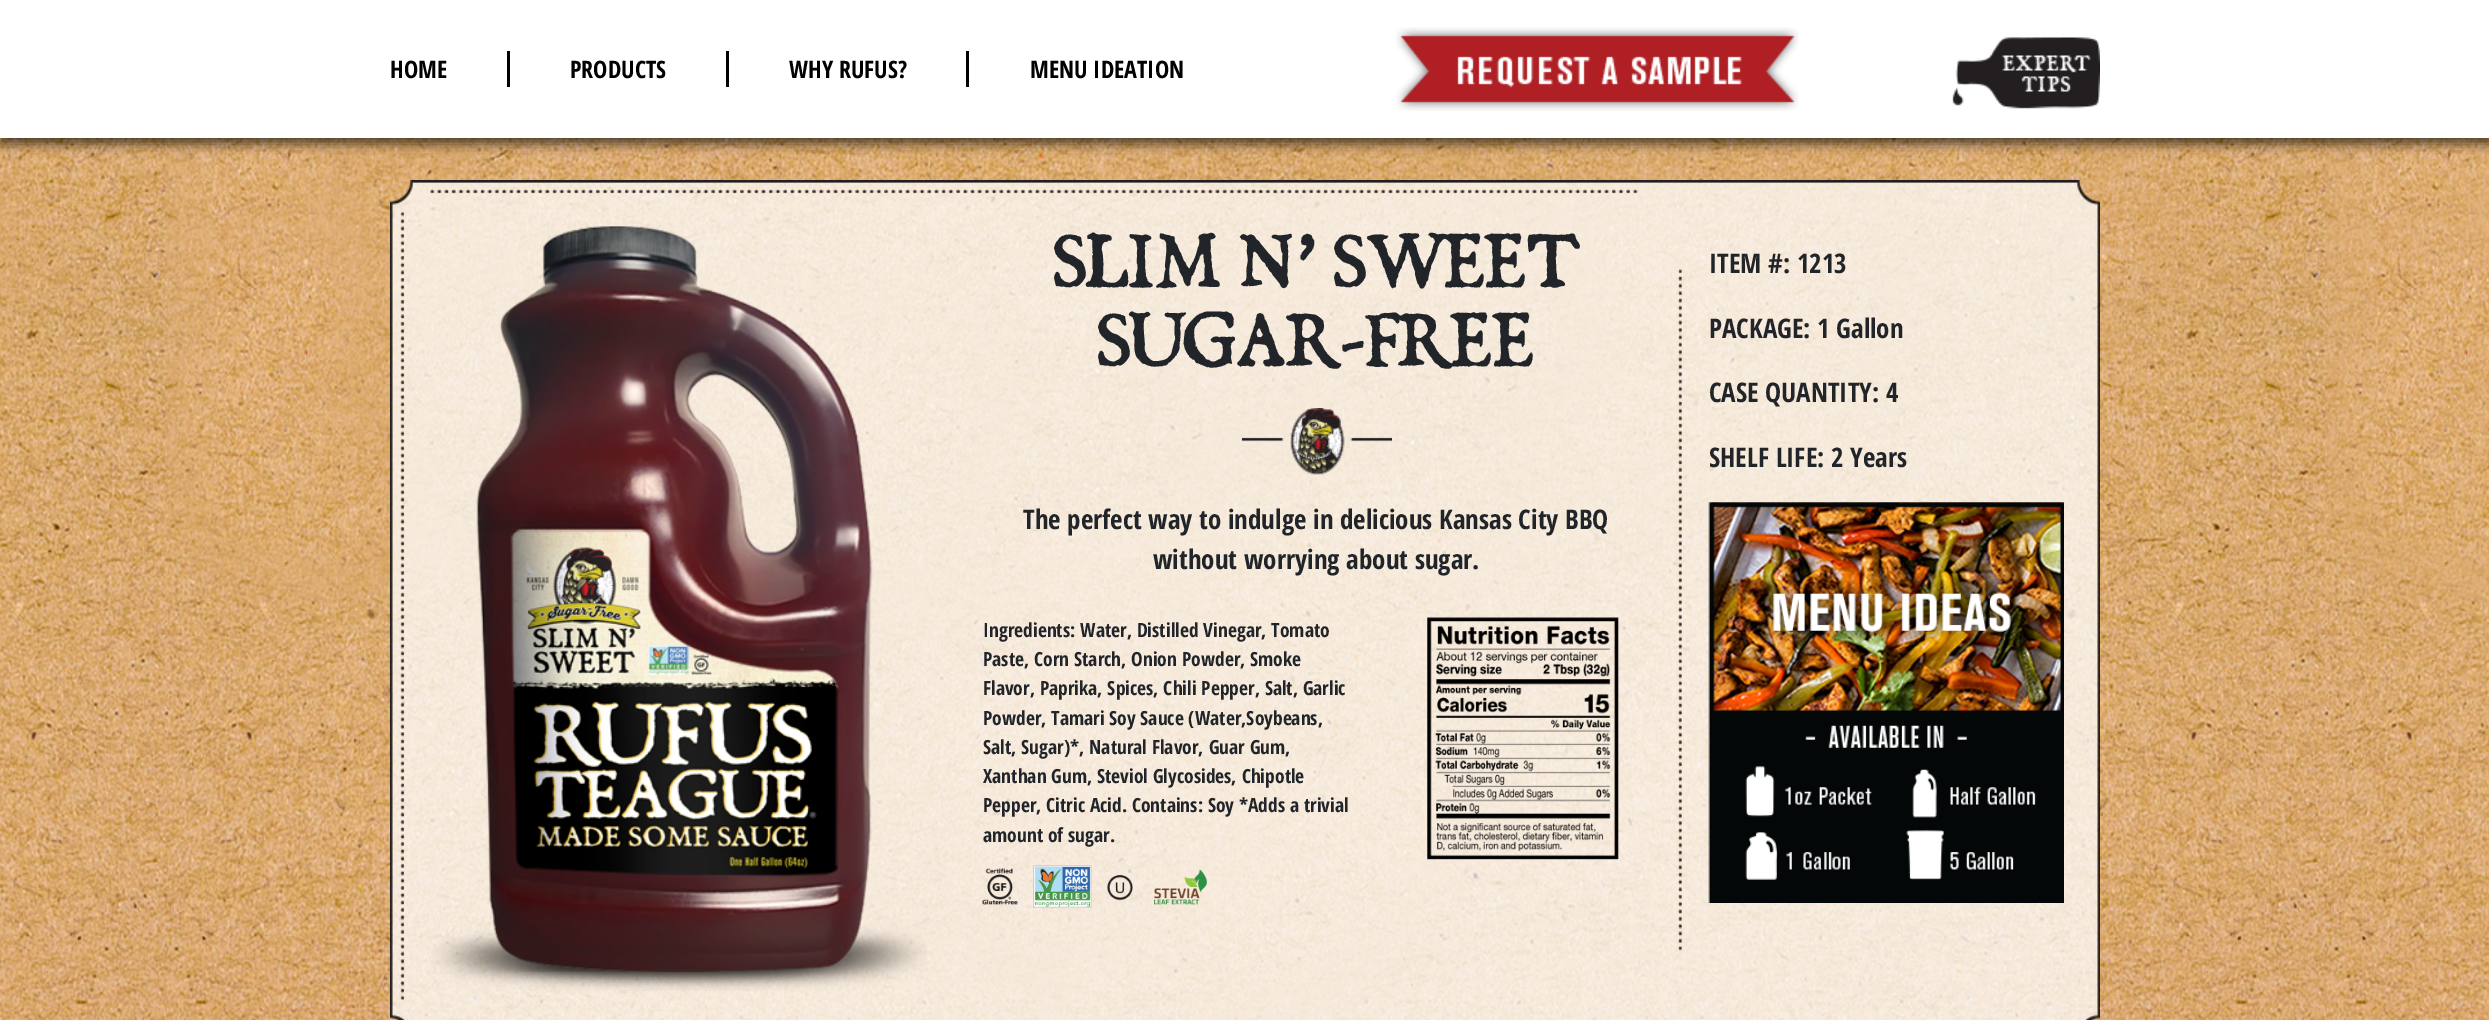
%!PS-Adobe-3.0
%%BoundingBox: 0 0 2489 1020
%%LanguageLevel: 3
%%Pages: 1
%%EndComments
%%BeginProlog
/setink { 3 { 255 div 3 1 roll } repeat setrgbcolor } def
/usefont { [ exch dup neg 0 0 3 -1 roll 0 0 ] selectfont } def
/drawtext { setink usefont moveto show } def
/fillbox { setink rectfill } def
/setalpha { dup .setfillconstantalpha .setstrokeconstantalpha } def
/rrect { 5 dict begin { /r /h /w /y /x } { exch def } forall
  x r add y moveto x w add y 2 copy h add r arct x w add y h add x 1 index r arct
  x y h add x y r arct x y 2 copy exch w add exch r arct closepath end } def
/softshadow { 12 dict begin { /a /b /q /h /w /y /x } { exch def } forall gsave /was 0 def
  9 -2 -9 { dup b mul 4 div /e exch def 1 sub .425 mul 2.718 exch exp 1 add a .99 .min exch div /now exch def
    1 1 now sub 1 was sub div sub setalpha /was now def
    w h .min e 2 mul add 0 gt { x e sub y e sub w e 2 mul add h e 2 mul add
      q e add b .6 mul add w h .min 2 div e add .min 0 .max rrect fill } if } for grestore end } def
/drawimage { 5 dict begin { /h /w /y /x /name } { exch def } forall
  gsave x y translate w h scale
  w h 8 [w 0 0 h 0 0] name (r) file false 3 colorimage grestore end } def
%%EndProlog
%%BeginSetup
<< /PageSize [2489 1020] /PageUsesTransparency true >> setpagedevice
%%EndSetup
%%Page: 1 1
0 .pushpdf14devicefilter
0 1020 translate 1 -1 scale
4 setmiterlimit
0 0 2489 1020 255 255 255 fillbox
(assets/img3.rgb) 0 138 2489 882 drawimage
0 0 0 setink
0 6 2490 138 0 6 0.65 softshadow
0 0 2489 138 255 255 255 fillbox
(HOME) 390 78 /OpenSansCondensed-Bold 24 0 0 0 drawtext
507 51 3 36 0 0 0 fillbox
(PRODUCTS) 570 78 /OpenSansCondensed-Bold 24 0 0 0 drawtext
966 51 3 36 0 0 0 fillbox
726 51 3 36 0 0 0 fillbox
(WHY RUFUS?) 789 78 /OpenSansCondensed-Bold 24 0 0 0 drawtext
(MENU IDEATION) 1030 78 /OpenSansCondensed-Bold 24 0 0 0 drawtext
(assets/img1.rgb) 1396 27 403 84 drawimage
(assets/img2.rgb) 1952 37 148 72 drawimage
(assets/img4.rgb) 390 180 1710 840 drawimage
(assets/img5.rgb) 431 226 496 765 drawimage
(SLIM N’ SWEET) 1054 287 /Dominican-Regular 66 33 37 41 drawtext
(SUGAR-FREE) 1098 366 /Dominican-Regular 66 33 37 41 drawtext
(assets/img6.rgb) 1242 408 150 67 drawimage
(The perfect way to indulge in delicious Kansas City BBQ) 1023 529 /OpenSansCondensed-Bold 27 33 37 41 drawtext
(without worrying about sugar.) 1153 569 /OpenSansCondensed-Bold 27 33 37 41 drawtext
(Ingredients: Water, Distilled Vinegar, Tomato) 983 637 /OpenSansCondensed-Bold 19.5 33 37 41 drawtext
(Paste, Corn Starch, Onion Powder, Smoke) 983 666 /OpenSansCondensed-Bold 19.5 33 37 41 drawtext
(Flavor, Paprika, Spices, Chili Pepper, Salt, Garlic) 983 695 /OpenSansCondensed-Bold 19.5 33 37 41 drawtext
(Powder, Tamari Soy Sauce \(Water,Soybeans,) 983 725 /OpenSansCondensed-Bold 19.5 33 37 41 drawtext
(Salt, Sugar\)*, Natural Flavor, Guar Gum,) 983 754 /OpenSansCondensed-Bold 19.5 33 37 41 drawtext
(Xanthan Gum, Steviol Glycosides, Chipotle) 983 783 /OpenSansCondensed-Bold 19.5 33 37 41 drawtext
(Pepper, Citric Acid. Contains: Soy *Adds a trivial) 983 812 /OpenSansCondensed-Bold 19.5 33 37 41 drawtext
(amount of sugar.) 983 842 /OpenSansCondensed-Bold 19.5 33 37 41 drawtext
(assets/img7.rgb) 982 865 225 43 drawimage
(assets/img8.rgb) 1427 617 192 243 drawimage
(ITEM #: 1213) 1709 273 /OpenSansCondensed-Bold 27 33 37 41 drawtext
(PACKAGE: 1 Gallon) 1709 338 /OpenSansCondensed-Bold 27 33 37 41 drawtext
(CASE QUANTITY: 4) 1709 402 /OpenSansCondensed-Bold 27 33 37 41 drawtext
(SHELF LIFE: 2 Years) 1709 467 /OpenSansCondensed-Bold 27 33 37 41 drawtext
(assets/img9.rgb) 1708 501 356 402 drawimage
.poppdf14devicefilter showpage
%%EOF
